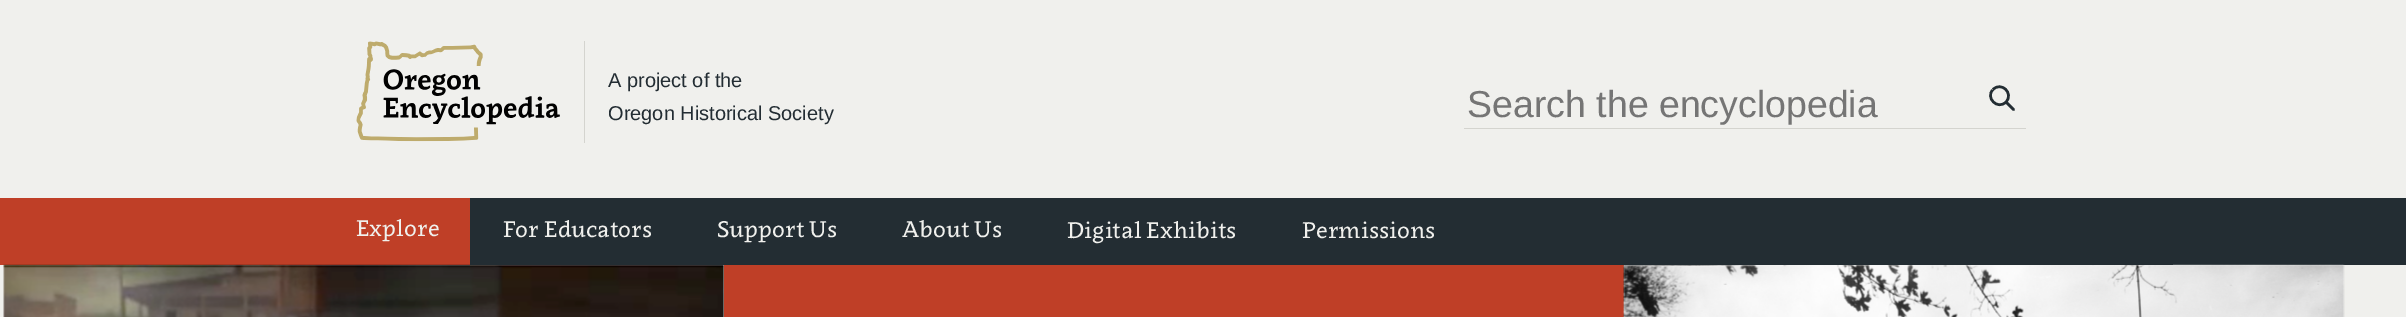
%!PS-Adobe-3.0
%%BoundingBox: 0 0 2406 317
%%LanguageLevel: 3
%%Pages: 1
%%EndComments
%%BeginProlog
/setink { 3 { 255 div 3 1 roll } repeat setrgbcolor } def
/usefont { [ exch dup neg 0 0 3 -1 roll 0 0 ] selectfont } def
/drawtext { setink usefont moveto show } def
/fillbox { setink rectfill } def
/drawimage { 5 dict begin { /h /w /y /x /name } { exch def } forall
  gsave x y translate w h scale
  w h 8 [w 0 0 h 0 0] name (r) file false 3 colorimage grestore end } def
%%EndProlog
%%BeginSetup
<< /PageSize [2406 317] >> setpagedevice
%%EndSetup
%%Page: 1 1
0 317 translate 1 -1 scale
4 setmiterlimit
0 0 2406 317 240 240 237 fillbox
(assets/img1.rgb) 356 41 204 101 drawimage
584 41 1 102 212 212 207 fillbox
(A project of the) 608 87 /LiberationSans-Regular 20 35 45 51 drawtext
(Oregon Historical Society) 608 120 /LiberationSans-Regular 20 35 45 51 drawtext
1464 128 562 1 212 212 207 fillbox
(Search the encyclopedia) 1467 117 /LiberationSans-Regular 37.5 117 117 117 drawtext
35 45 51 setink
2.5 setlinewidth
1993 89.5 moveto 2001.5 81 2014 93.5 2006 102 curveto 1997.5 110.5 1985 97.5 1993 89.5 curveto closepath stroke
1 setlinecap
1 setlinejoin
2006.5 102.5 moveto 2013.5 109.5 lineto stroke
0 198 470 67 191 63 39 fillbox
1035 198 1371 67 35 45 51 fillbox
(Explore) 356 236 /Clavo-Regular 22.5 240 240 237 drawtext
(assets/img2.rgb) 3 264 721 53 drawimage
470 198 565 67 35 45 51 fillbox
(For Educators) 503 237 /Clavo-Regular 22.5 240 240 237 drawtext
(Support Us) 717 237 /Clavo-Regular 22.5 240 240 237 drawtext
(About Us) 902 237 /Clavo-Regular 22.5 240 240 237 drawtext
(Digital Exhibits) 1067 238 /Clavo-Regular 22.5 240 240 237 drawtext
(Permissions) 1302 238 /Clavo-Regular 22.5 240 240 237 drawtext
724 265 900 52 191 63 39 fillbox
(assets/img3.rgb) 1623 264 722 53 drawimage
1623 264 550 1 35 45 51 fillbox
showpage
%%EOF
